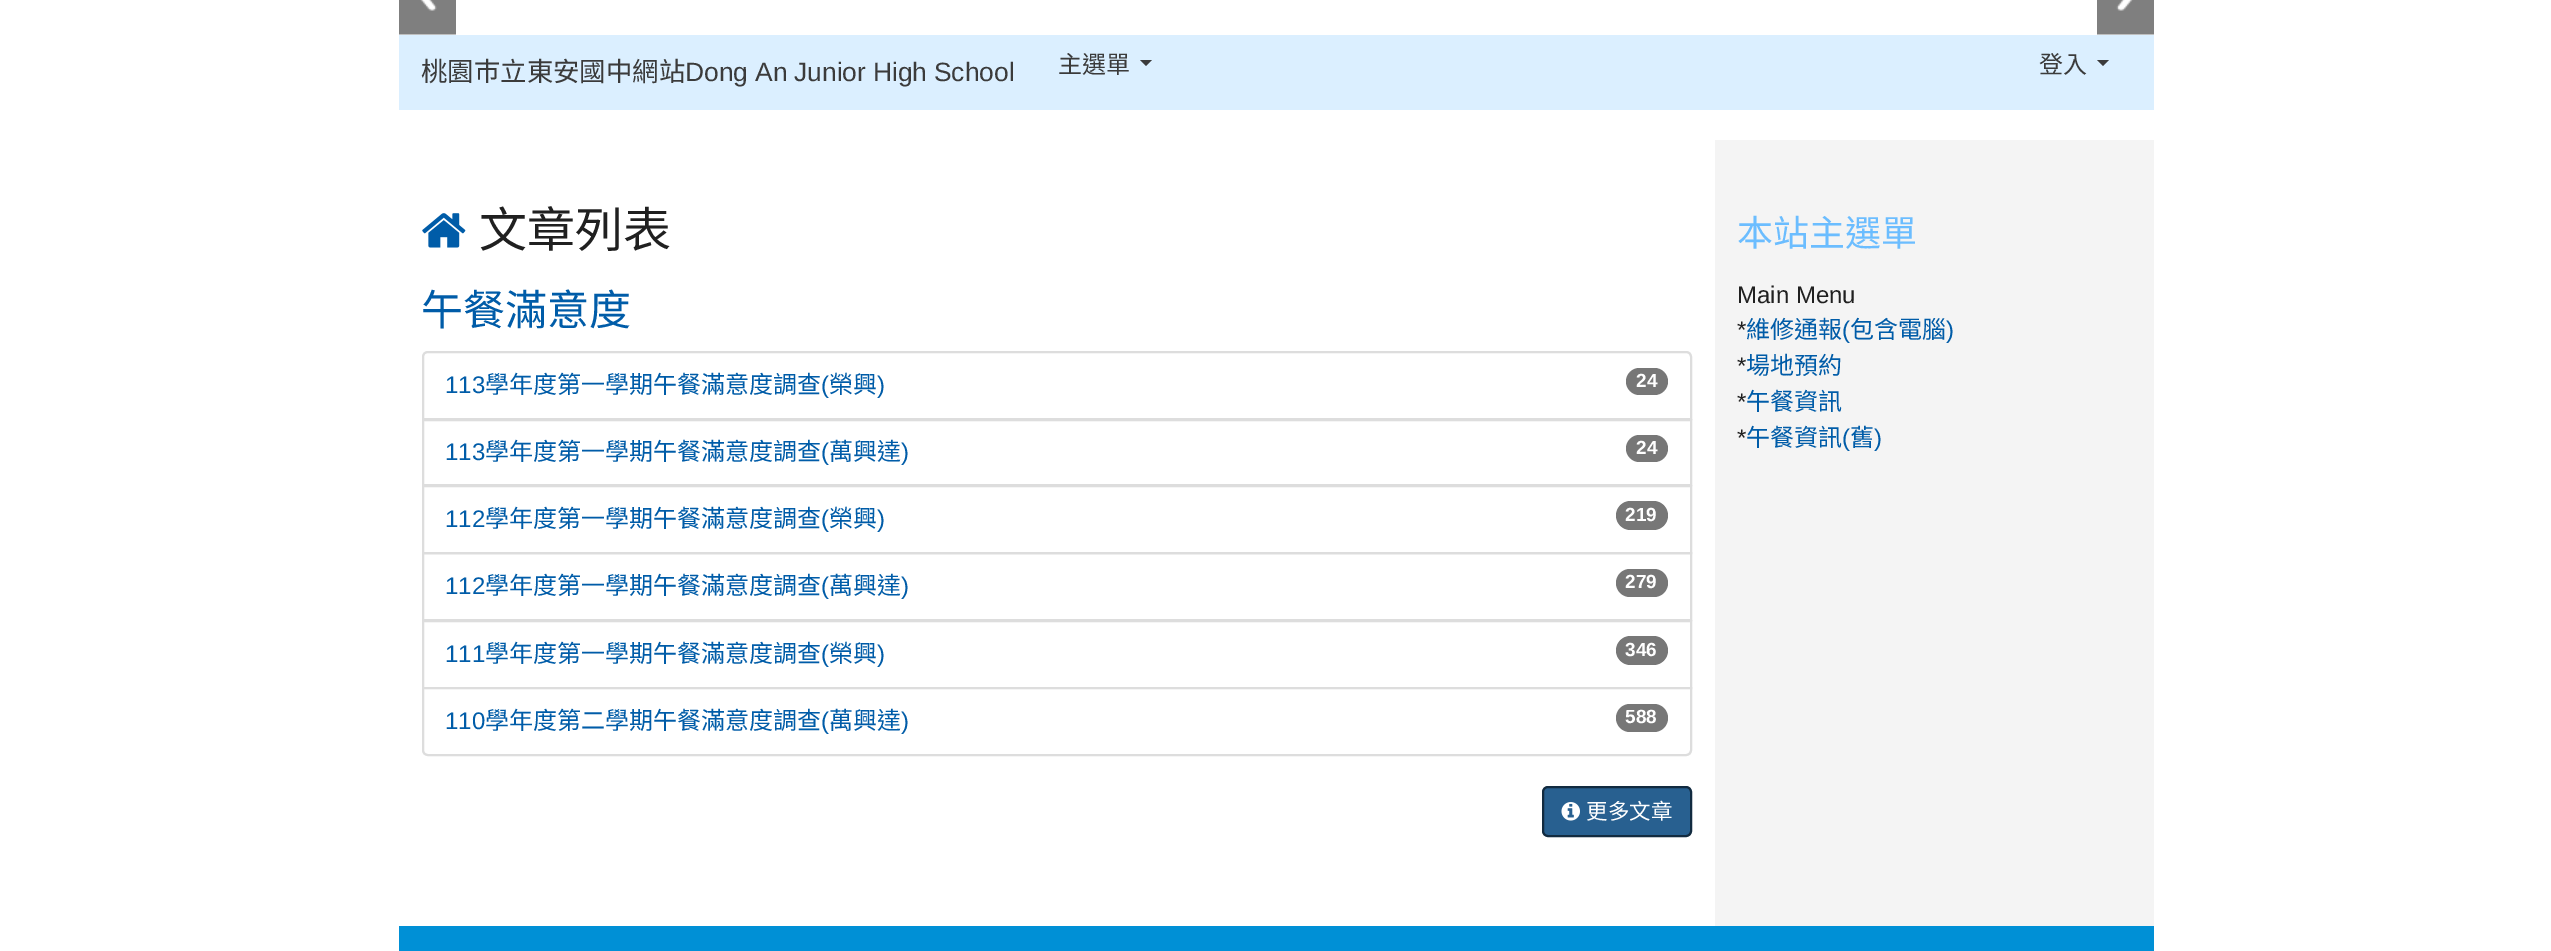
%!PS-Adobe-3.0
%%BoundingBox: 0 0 2551 951
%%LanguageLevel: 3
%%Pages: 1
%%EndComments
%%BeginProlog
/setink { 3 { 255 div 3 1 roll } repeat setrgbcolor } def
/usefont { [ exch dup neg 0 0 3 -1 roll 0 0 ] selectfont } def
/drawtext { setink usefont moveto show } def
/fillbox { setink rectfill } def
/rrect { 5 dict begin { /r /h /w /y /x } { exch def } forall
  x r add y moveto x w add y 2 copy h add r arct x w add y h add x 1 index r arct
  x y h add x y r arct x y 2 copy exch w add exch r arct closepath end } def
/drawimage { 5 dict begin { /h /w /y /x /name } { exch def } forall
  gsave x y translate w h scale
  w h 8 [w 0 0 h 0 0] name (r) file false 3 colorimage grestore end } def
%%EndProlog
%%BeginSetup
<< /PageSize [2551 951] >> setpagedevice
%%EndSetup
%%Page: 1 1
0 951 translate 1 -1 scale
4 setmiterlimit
0 0 2551 951 255 255 255 fillbox
(assets/img1.rgb) 399 0 57 35 drawimage
(assets/img2.rgb) 2097 0 57 35 drawimage
399 35 1755 75 219 239 255 fillbox
(桃園巿立東安國中網站) 421 81 /NotoSansCJKTC-Regular 26.4 59 59 59 drawtext
/LiberationSans-Regular 26.4 usefont
685 81 moveto -0.5 0 32 (Dong An Junior High School) widthshow
(主選單) 1058 73 /NotoSansCJKTC-Regular 24 59 59 59 drawtext
1140 60 moveto 1152 60 lineto 1146 66 lineto closepath fill
(登入) 2039 73 /NotoSansCJKTC-Regular 24 59 59 59 drawtext
2097 60 moveto 2109 60 lineto 2103 66 lineto closepath fill
(assets/img3.rgb) 422 213 44 35 drawimage
(文章列表) 479 247 /NotoSansCJKTC-Regular 48 32 32 32 drawtext
(午餐滿意度) 421 325 /NotoSansCJKTC-Regular 42 0 92 168 drawtext
221 221 221 setink
2 setlinewidth
428 352 moveto 1686 352 lineto 1689 352 1691 354 1691 357 curveto 1691 419 lineto 423 419 lineto 423 357 lineto 423 354 425 352 428 352 curveto closepath stroke
(113) 445 393 /LiberationSans-Regular 24 0 92 168 drawtext
(學年度第一學期午餐滿意度調查) 485 393 /NotoSansCJKTC-Regular 24 0 92 168 drawtext
(\() 821 393 /LiberationSans-Regular 24 0 92 168 drawtext
(榮興) 829 393 /NotoSansCJKTC-Regular 24 0 92 168 drawtext
(\)) 877 393 /LiberationSans-Regular 24 0 92 168 drawtext
119 119 119 setink
1626 368 42 27 13.5 rrect fill
(24) 1636 387 /LiberationSans-Bold 19 255 255 255 drawtext
221 221 221 setink
423 420 1268 65 rectstroke
(113) 445 460 /LiberationSans-Regular 24 0 92 168 drawtext
(學年度第一學期午餐滿意度調查) 485 460 /NotoSansCJKTC-Regular 24 0 92 168 drawtext
(\() 821 460 /LiberationSans-Regular 24 0 92 168 drawtext
(萬興達) 829 460 /NotoSansCJKTC-Regular 24 0 92 168 drawtext
(\)) 901 460 /LiberationSans-Regular 24 0 92 168 drawtext
119 119 119 setink
1626 435 42 27 13.5 rrect fill
(24) 1636 454 /LiberationSans-Bold 19 255 255 255 drawtext
221 221 221 setink
423 486 1268 67 rectstroke
(112) 445 527 /LiberationSans-Regular 24 0 92 168 drawtext
(學年度第一學期午餐滿意度調查) 485 527 /NotoSansCJKTC-Regular 24 0 92 168 drawtext
(\() 821 527 /LiberationSans-Regular 24 0 92 168 drawtext
(榮興) 829 527 /NotoSansCJKTC-Regular 24 0 92 168 drawtext
(\)) 877 527 /LiberationSans-Regular 24 0 92 168 drawtext
119 119 119 setink
1616 501 52 29 14.5 rrect fill
(219) 1625 521 /LiberationSans-Bold 19 255 255 255 drawtext
221 221 221 setink
423 553 1268 67 rectstroke
(112) 445 594 /LiberationSans-Regular 24 0 92 168 drawtext
(學年度第一學期午餐滿意度調查) 485 594 /NotoSansCJKTC-Regular 24 0 92 168 drawtext
(\() 821 594 /LiberationSans-Regular 24 0 92 168 drawtext
(萬興達) 829 594 /NotoSansCJKTC-Regular 24 0 92 168 drawtext
(\)) 901 594 /LiberationSans-Regular 24 0 92 168 drawtext
119 119 119 setink
1616 569 52 28 14 rrect fill
(279) 1625 588 /LiberationSans-Bold 19 255 255 255 drawtext
221 221 221 setink
423 621 1268 67 rectstroke
(111) 445 662 /LiberationSans-Regular 24 0 92 168 drawtext
(學年度第一學期午餐滿意度調查) 485 662 /NotoSansCJKTC-Regular 24 0 92 168 drawtext
(\() 821 662 /LiberationSans-Regular 24 0 92 168 drawtext
(榮興) 829 662 /NotoSansCJKTC-Regular 24 0 92 168 drawtext
(\)) 877 662 /LiberationSans-Regular 24 0 92 168 drawtext
119 119 119 setink
1616 636 52 29 14.5 rrect fill
(346) 1625 656 /LiberationSans-Bold 19 255 255 255 drawtext
423 688 moveto 1691 688 lineto 1691 750 lineto 1691 753 1689 755 1686 755 curveto 428 755 lineto 425 755 423 753 423 750 curveto closepath gsave fill grestore
221 221 221 setink
stroke
(110) 445 729 /LiberationSans-Regular 24 0 92 168 drawtext
(學年度第二學期午餐滿意度調查) 485 729 /NotoSansCJKTC-Regular 24 0 92 168 drawtext
(\() 821 729 /LiberationSans-Regular 24 0 92 168 drawtext
(萬興達) 829 729 /NotoSansCJKTC-Regular 24 0 92 168 drawtext
(\)) 901 729 /LiberationSans-Regular 24 0 92 168 drawtext
119 119 119 setink
1616 704 52 28 14 rrect fill
(588) 1625 723 /LiberationSans-Bold 19 255 255 255 drawtext
40 96 144 setink
1543 787 148 49 5 rrect gsave fill grestore
18 43 64 setink
stroke
(assets/img4.rgb) 1561 802 19 19 drawimage
(更多文章) 1586 819 /NotoSansCJKTC-Regular 21.5 255 255 255 drawtext
1715 140 439 786 244 244 244 fillbox
(本站主選單) 1737 246 /NotoSansCJKTC-Regular 36 107 189 255 drawtext
(Main Menu) 1737 303 /LiberationSans-Regular 24 32 32 32 drawtext
(*) 1737 338 /LiberationSans-Regular 24 32 32 32 drawtext
(維修通報) 1746 338 /NotoSansCJKTC-Regular 24 0 92 168 drawtext
(\() 1842 338 /LiberationSans-Regular 24 0 92 168 drawtext
(包含電腦) 1850 338 /NotoSansCJKTC-Regular 24 0 92 168 drawtext
(\)) 1946 338 /LiberationSans-Regular 24 0 92 168 drawtext
(*) 1737 374 /LiberationSans-Regular 24 32 32 32 drawtext
(場地預約) 1746 374 /NotoSansCJKTC-Regular 24 0 92 168 drawtext
(*) 1737 410 /LiberationSans-Regular 24 32 32 32 drawtext
(午餐資訊) 1746 410 /NotoSansCJKTC-Regular 24 0 92 168 drawtext
(*) 1737 446 /LiberationSans-Regular 24 32 32 32 drawtext
(午餐資訊) 1746 446 /NotoSansCJKTC-Regular 24 0 92 168 drawtext
(\() 1842 446 /LiberationSans-Regular 24 0 92 168 drawtext
(舊) 1850 446 /NotoSansCJKTC-Regular 24 0 92 168 drawtext
(\)) 1874 446 /LiberationSans-Regular 24 0 92 168 drawtext
399 926 1755 25 0 144 214 fillbox
showpage
%%EOF
